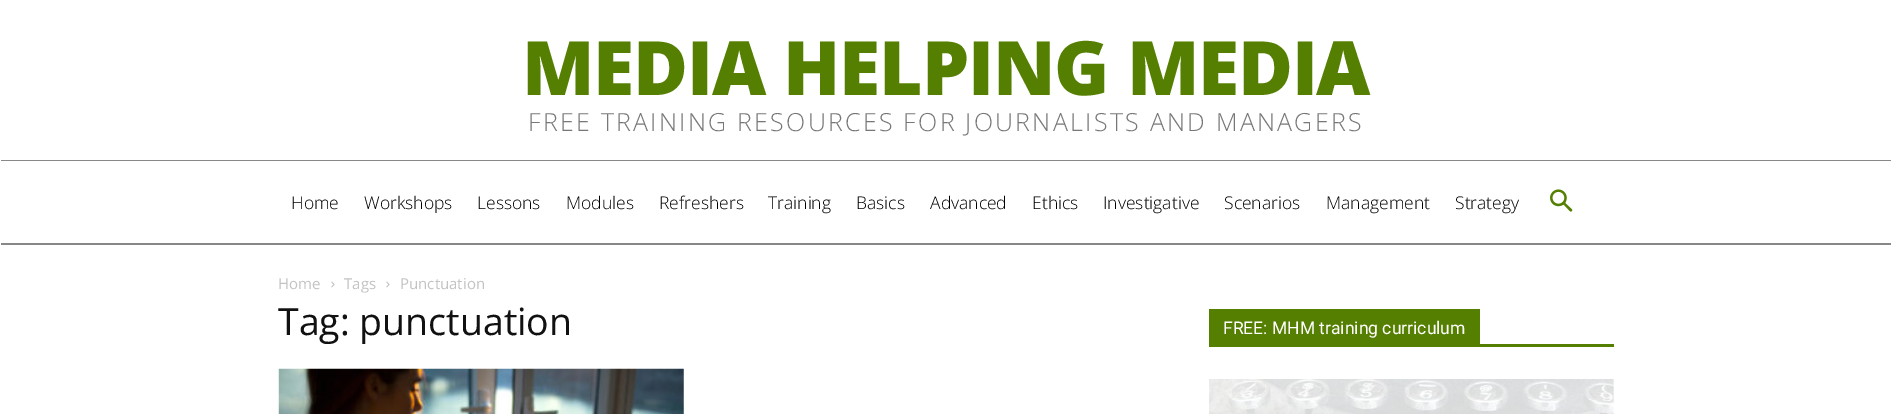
%!PS-Adobe-3.0
%%BoundingBox: 0 0 1891 414
%%LanguageLevel: 3
%%Pages: 1
%%EndComments
%%BeginProlog
/setink { 3 { 255 div 3 1 roll } repeat setrgbcolor } def
/usefont { [ exch dup neg 0 0 3 -1 roll 0 0 ] selectfont } def
/drawtext { setink usefont moveto show } def
/fillbox { setink rectfill } def
/drawimage { 5 dict begin { /h /w /y /x /name } { exch def } forall
  gsave x y translate w h scale
  w h 8 [w 0 0 h 0 0] name (r) file false 3 colorimage grestore end } def
%%EndProlog
%%BeginSetup
<< /PageSize [1891 414] >> setpagedevice
%%EndSetup
%%Page: 1 1
0 414 translate 1 -1 scale
4 setmiterlimit
0 0 1891 414 255 255 255 fillbox
/OpenSans-ExtraBold 75 usefont
85 127 1 setink
522 95 moveto -1.25 0 (MEDIA HELPING MEDIA) ashow
/OpenSans-Light 25 usefont
119 119 119 setink
528 131 moveto 2.25 0 (FREE TRAINING RESOURCES FOR JOURNALISTS AND MANAGERS) ashow
1 160 1890 1 136 136 136 fillbox
1 243 1890 2 136 136 136 fillbox
(Home) 291 209 /OpenSans-Light 17.5 0 0 0 drawtext
(Workshops) 364 209 /OpenSans-Light 17.5 0 0 0 drawtext
(Lessons) 477 209 /OpenSans-Light 17.5 0 0 0 drawtext
(Modules) 566 209 /OpenSans-Light 17.5 0 0 0 drawtext
(Refreshers) 659 209 /OpenSans-Light 17.5 0 0 0 drawtext
(Training) 768 209 /OpenSans-Light 17.5 0 0 0 drawtext
(Basics) 856 209 /OpenSans-Light 17.5 0 0 0 drawtext
(Advanced) 930 209 /OpenSans-Light 17.5 0 0 0 drawtext
(Ethics) 1032 209 /OpenSans-Light 17.5 0 0 0 drawtext
(Investigative) 1103 209 /OpenSans-Light 17.5 0 0 0 drawtext
(Scenarios) 1224 209 /OpenSans-Light 17.5 0 0 0 drawtext
(Management) 1326 209 /OpenSans-Light 17.5 0 0 0 drawtext
(Strategy) 1455 209 /OpenSans-Light 17.5 0 0 0 drawtext
(assets/img1.rgb) 1550 189 23 23 drawimage
(Home) 278 289 /OpenSans-Regular 15 195 195 195 drawtext
(assets/img2.rgb) 331 281 4 7 drawimage
(Tags) 344 289 /OpenSans-Regular 15 195 195 195 drawtext
(assets/img2.rgb) 386 281 4 7 drawimage
(Punctuation) 400 289 /OpenSans-Regular 15 195 195 195 drawtext
(Tag: punctuation) 278 335 /OpenSans-Regular 37.5 17 17 17 drawtext
(assets/img3.rgb) 278 368 406 46 drawimage
1209 344 405 3 85 127 1 fillbox
1209 309 271 35 85 127 1 fillbox
(FREE: MHM training curriculum) 1223 334 /Roboto-Regular 17.5 255 255 255 drawtext
(assets/img4.rgb) 1209 379 405 35 drawimage
showpage
%%EOF
